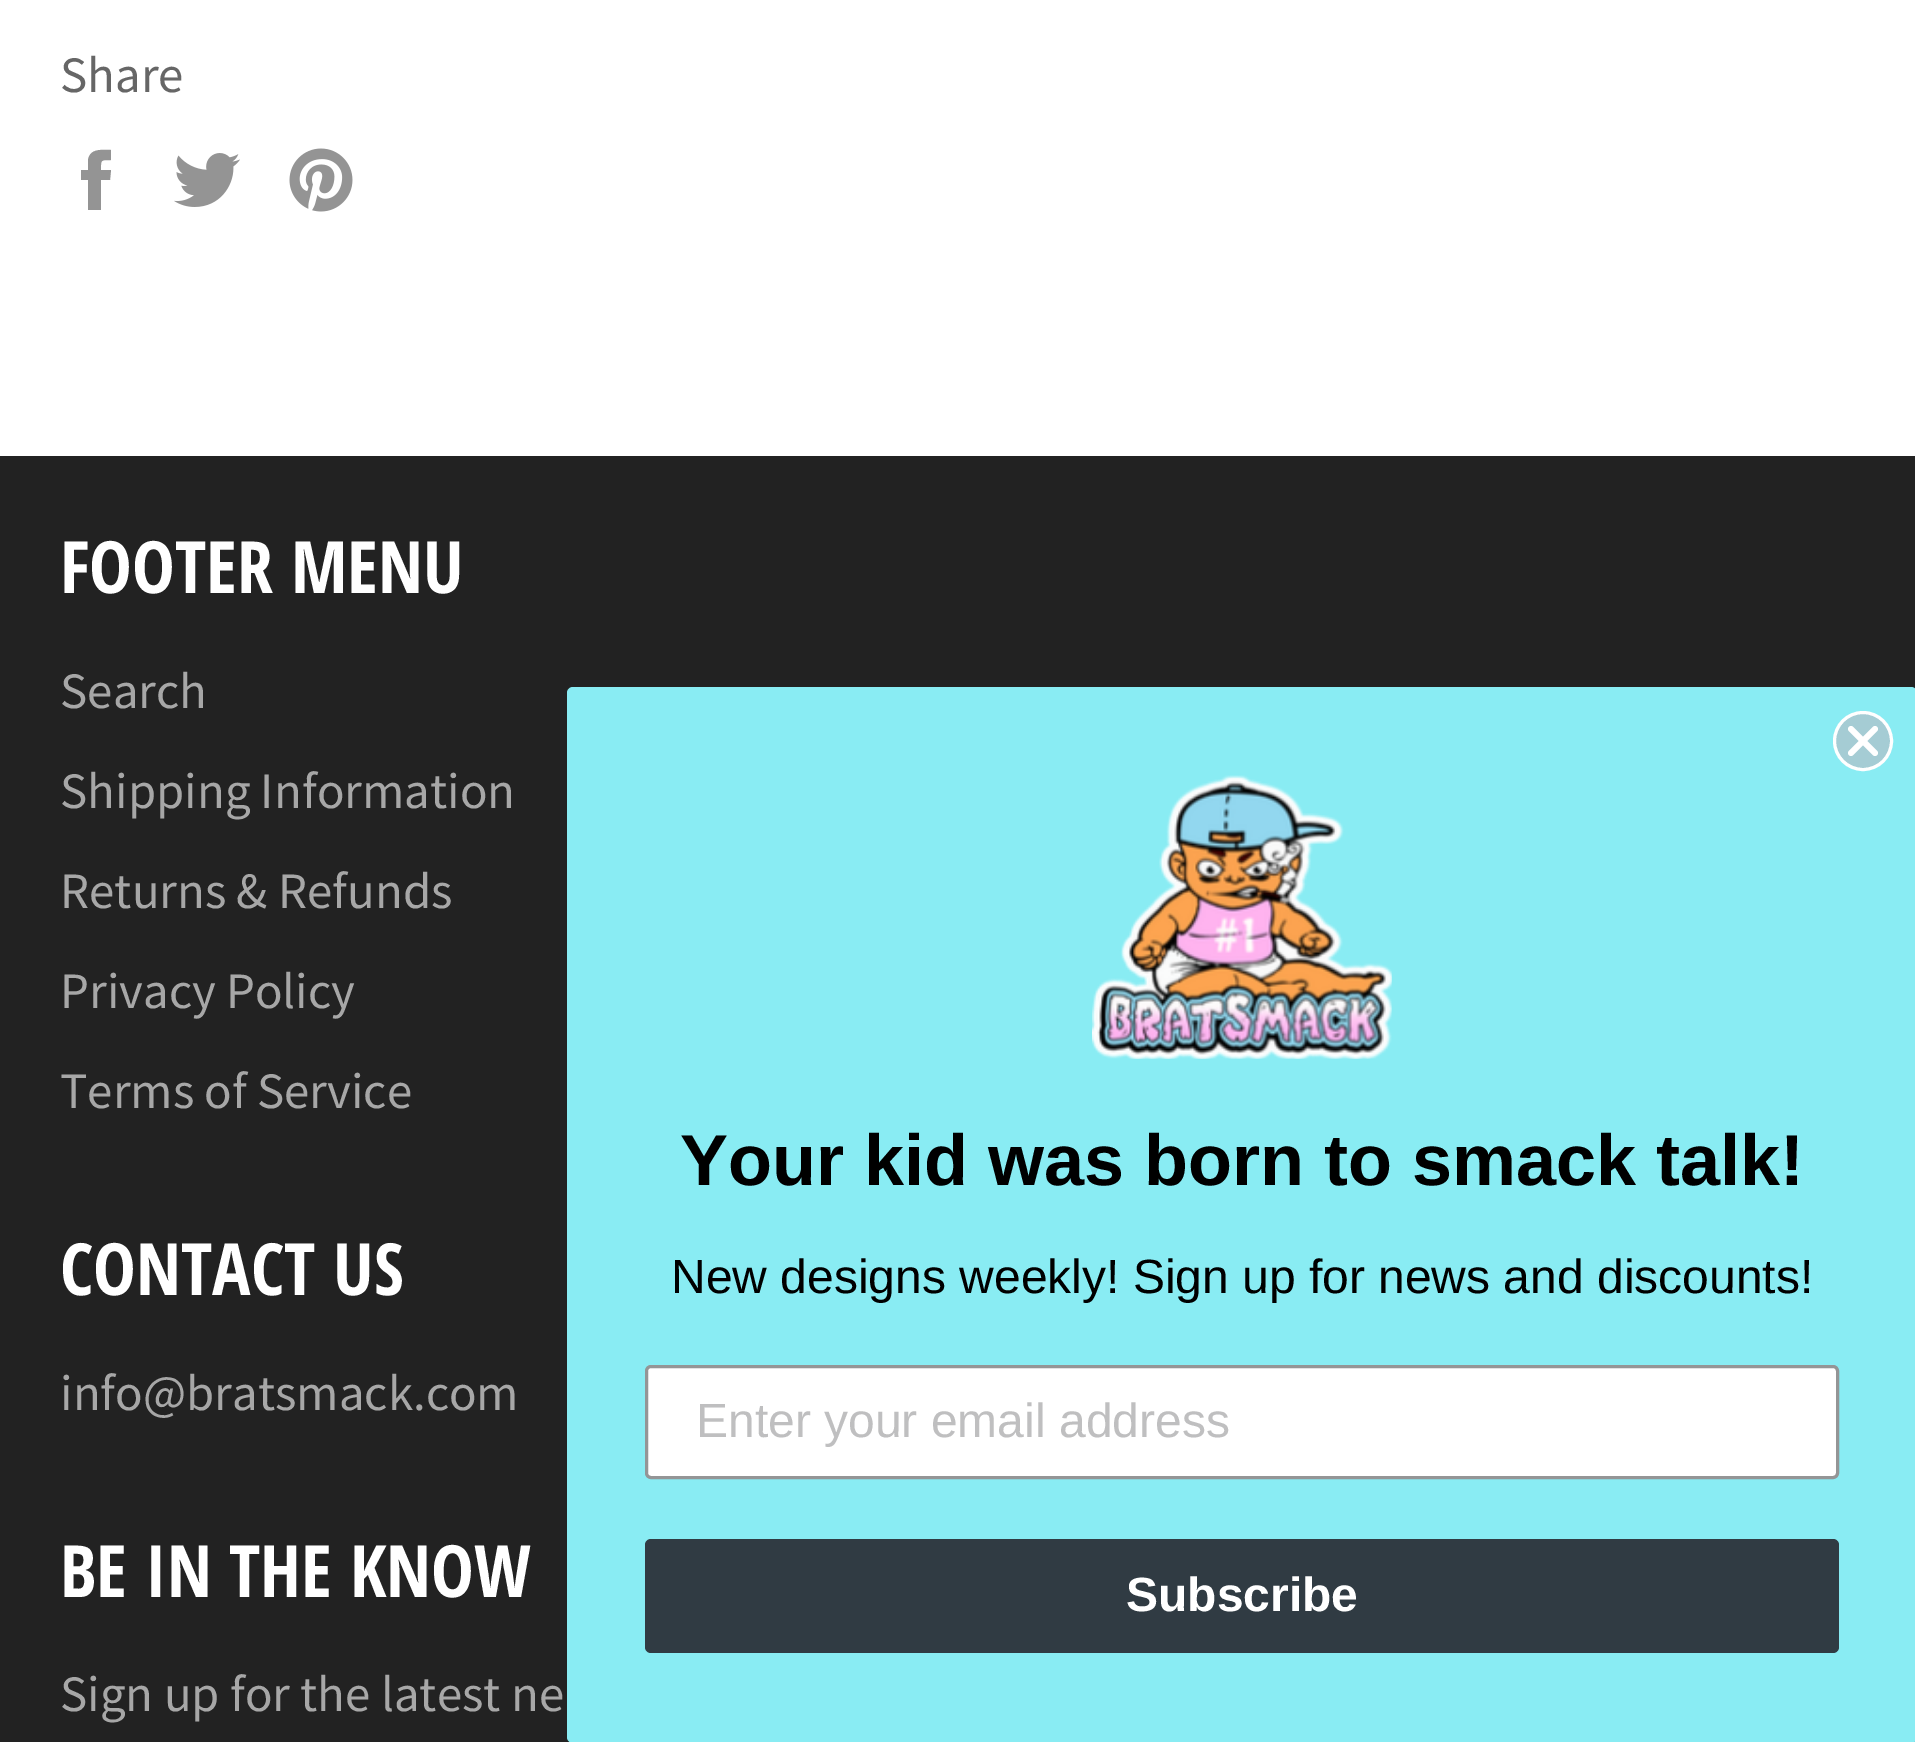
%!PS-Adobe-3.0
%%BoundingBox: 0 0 1915 1742
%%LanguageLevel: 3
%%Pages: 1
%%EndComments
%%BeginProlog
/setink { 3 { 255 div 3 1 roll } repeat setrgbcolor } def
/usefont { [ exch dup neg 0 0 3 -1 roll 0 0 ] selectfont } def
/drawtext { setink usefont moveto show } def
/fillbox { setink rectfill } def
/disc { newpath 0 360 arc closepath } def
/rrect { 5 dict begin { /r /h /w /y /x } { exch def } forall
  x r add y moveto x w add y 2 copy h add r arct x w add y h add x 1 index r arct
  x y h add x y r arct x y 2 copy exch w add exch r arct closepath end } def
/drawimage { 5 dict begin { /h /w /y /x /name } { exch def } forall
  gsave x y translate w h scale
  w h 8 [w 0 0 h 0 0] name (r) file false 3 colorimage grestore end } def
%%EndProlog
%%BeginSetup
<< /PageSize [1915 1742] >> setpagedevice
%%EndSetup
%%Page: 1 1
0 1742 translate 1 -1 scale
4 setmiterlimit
0 0 1915 1742 255 255 255 fillbox
(Share) 60 92 /SourceSansPro-Regular 51 102 102 102 drawtext
148 148 148 setink
101 170 moveto 101 160 100 160 111 160 curveto 111 150 lineto 102 150 90 148 88 160 curveto 88 170 lineto 81 170 lineto 81 180 lineto 88 180 lineto 88 210 lineto 101 210 lineto 101 180 lineto 110 180 lineto 111 170 lineto closepath fill
(assets/img1.rgb) 174 153 66 54 drawimage
(assets/img2.rgb) 289 148 64 64 drawimage
0 456 1915 1286 34 34 34 fillbox
(FOOTER MENU) 60 593 /OpenSansCondensed-Bold 72 255 255 255 drawtext
(Search) 60 708 /SourceSansPro-Regular 51 167 167 167 drawtext
(Shipping Information) 60 808 /SourceSansPro-Regular 51 167 167 167 drawtext
(Returns & Refunds) 60 908 /SourceSansPro-Regular 51 167 167 167 drawtext
(Privacy Policy) 60 1008 /SourceSansPro-Regular 51 167 167 167 drawtext
(Terms of Service) 60 1108 /SourceSansPro-Regular 51 167 167 167 drawtext
(CONTACT US) 60 1295 /OpenSansCondensed-Bold 72 255 255 255 drawtext
(info@bratsmack.com) 60 1410 /SourceSansPro-Regular 51 167 167 167 drawtext
(BE IN THE KNOW) 60 1597 /OpenSansCondensed-Bold 72 255 255 255 drawtext
(Sign up for the latest ne) 60 1711 /SourceSansPro-Regular 51 167 167 167 drawtext
137 236 243 setink
567 687 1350 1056 6 rrect fill
165 204 212 setink
1863 741 28.5 disc gsave fill grestore
255 255 255 setink
3 setlinewidth
stroke
6 setlinewidth
1 setlinecap
1 setlinejoin
1851 729 moveto 1875 753 lineto 1851 753 moveto 1875 729 lineto closepath stroke
(assets/img3.rgb) 1092 775 300 284 drawimage
(Your kid was born to smack talk!) 680 1185 /LiberationSans-Bold 72 0 0 0 drawtext
(New designs weekly! Sign up for news and discounts!) 671 1293 /LiberationSans-Regular 48 0 0 0 drawtext
255 255 255 setink
646.5 1366.5 1191 111 4.5 rrect gsave fill grestore
148 149 150 setink
3 setlinewidth
0 setlinecap
0 setlinejoin
stroke
(Enter your email address) 696 1437 /LiberationSans-Regular 48 191 191 192 drawtext
48 59 67 setink
645 1539 1194 114 6 rrect fill
(Subscribe) 1126 1611 /LiberationSans-Bold 48 255 255 255 drawtext
showpage
%%EOF
